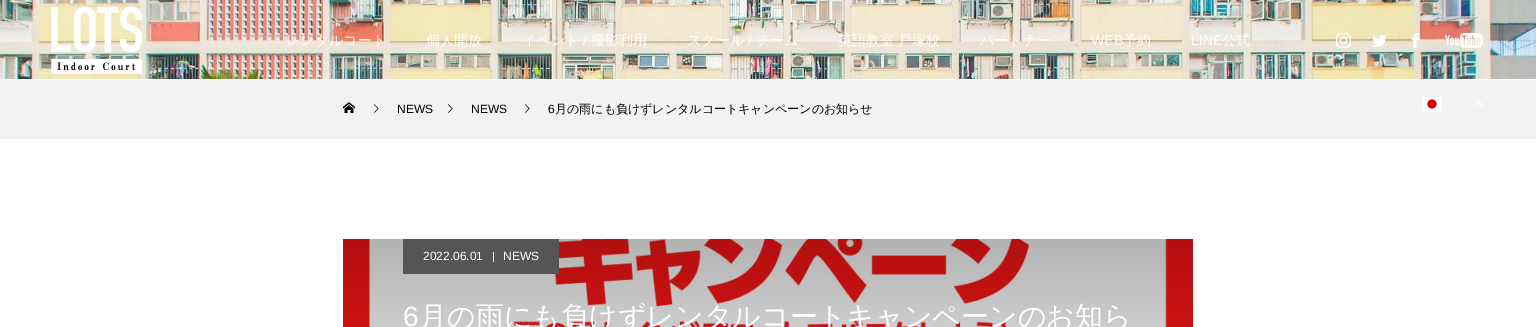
%!PS-Adobe-3.0
%%BoundingBox: 0 0 1536 327
%%LanguageLevel: 3
%%Pages: 1
%%EndComments
%%BeginProlog
/setink { 3 { 255 div 3 1 roll } repeat setrgbcolor } def
/usefont { [ exch dup neg 0 0 3 -1 roll 0 0 ] selectfont } def
/drawtext { setink usefont moveto show } def
/fillbox { setink rectfill } def
/disc { newpath 0 360 arc closepath } def
/drawimage { 5 dict begin { /h /w /y /x /name } { exch def } forall
  gsave x y translate w h scale
  w h 8 [w 0 0 h 0 0] name (r) file false 3 colorimage grestore end } def
%%EndProlog
%%BeginSetup
<< /PageSize [1536 327] >> setpagedevice
%%EndSetup
%%Page: 1 1
0 327 translate 1 -1 scale
4 setmiterlimit
0 0 1536 327 255 255 255 fillbox
(assets/img1.rgb) 0 0 1536 79 drawimage
(assets/img2.rgb) 51 6 91 68 drawimage
(レンタルコート) 286 45 /WenQuanYiZenHei-Medium 14 255 255 255 drawtext
(個人開放) 426 45 /WenQuanYiZenHei-Medium 14 255 255 255 drawtext
(イベント) 522 45 /WenQuanYiZenHei-Medium 14 255 255 255 drawtext
(/) 583 45 /LiberationSans-Regular 14 255 255 255 drawtext
(撮影利用) 591 45 /WenQuanYiZenHei-Medium 14 255 255 255 drawtext
(スクール) 687 45 /WenQuanYiZenHei-Medium 14 255 255 255 drawtext
(/) 748 45 /LiberationSans-Regular 14 255 255 255 drawtext
(チーム) 756 45 /WenQuanYiZenHei-Medium 14 255 255 255 drawtext
(英語教室 戸塚校) 838 45 /WenQuanYiZenHei-Medium 14 255 255 255 drawtext
(パートナー) 980 45 /WenQuanYiZenHei-Medium 14 255 255 255 drawtext
(WEB) 1091 45 /LiberationSans-Regular 14 255 255 255 drawtext
(予約) 1123 45 /WenQuanYiZenHei-Medium 14 255 255 255 drawtext
(LINE) 1191 45 /LiberationSans-Regular 14 255 255 255 drawtext
(公式) 1222 45 /WenQuanYiZenHei-Medium 14 255 255 255 drawtext
(assets/img3.rgb) 1336 32 15 16 drawimage
(assets/img4.rgb) 1372 34 15 13 drawimage
(assets/img5.rgb) 1411 33 9 15 drawimage
(assets/img6.rgb) 1445 32 38 16 drawimage
0 80 1536 59 242 242 242 fillbox
(assets/img7.rgb) 343 102 12 11 drawimage
(assets/img8.rgb) 374 104 5 9 drawimage
(NEWS) 397 113 /LiberationSans-Regular 12 0 0 0 drawtext
(assets/img8.rgb) 448 104 5 9 drawimage
(NEWS) 471 113 /LiberationSans-Regular 12 0 0 0 drawtext
(assets/img8.rgb) 525 104 5 9 drawimage
(6) 548 113 /LiberationSans-Regular 12 0 0 0 drawtext
(月の雨にも負けずレンタルコートキャンペーンのお知らせ) 555 113 /WenQuanYiZenHei-Medium 12 0 0 0 drawtext
1422 97 20 15 255 255 255 fillbox
211 0 0 setink
1432 104 4.5 disc fill
(assets/img9.rgb) 1473 100 11 7 drawimage
(assets/img10.rgb) 343 239 850 88 drawimage
403 239 156 35 85 85 85 fillbox
(2022.06.01) 423 260 /LiberationSans-Regular 12 255 255 255 drawtext
493 252 1 10 255 255 255 fillbox
(NEWS) 503 260 /LiberationSans-Regular 12 255 255 255 drawtext
(6) 403 326 /LiberationSans-Regular 28 255 255 255 drawtext
(月の雨にも負けずレンタルコートキャンペーンのお知ら) 419 326 /WenQuanYiZenHei-Medium 28 255 255 255 drawtext
showpage
%%EOF
